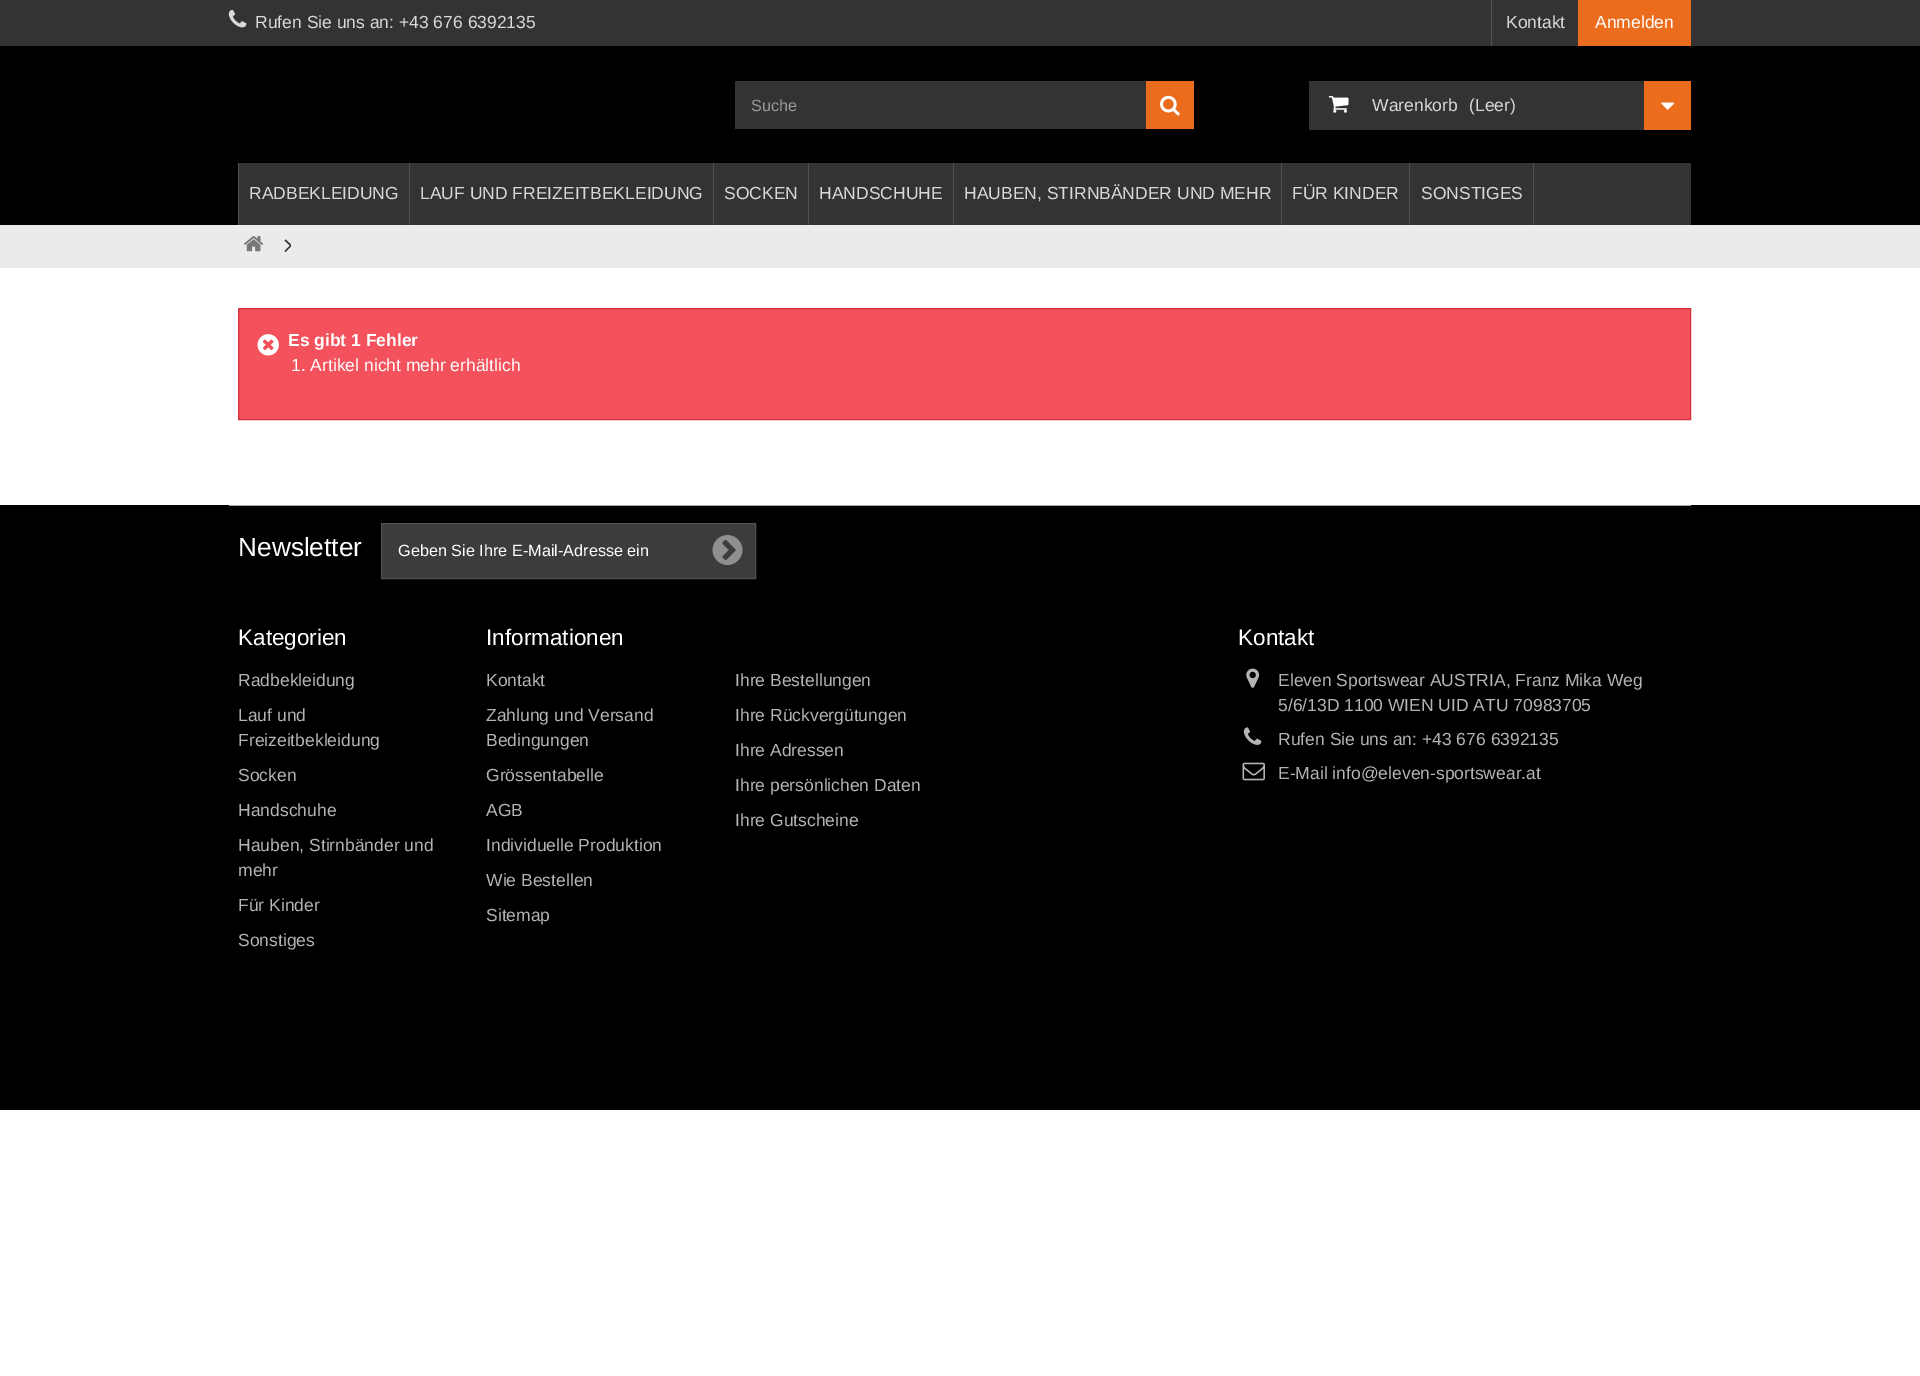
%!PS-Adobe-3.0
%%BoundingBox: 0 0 1920 1376
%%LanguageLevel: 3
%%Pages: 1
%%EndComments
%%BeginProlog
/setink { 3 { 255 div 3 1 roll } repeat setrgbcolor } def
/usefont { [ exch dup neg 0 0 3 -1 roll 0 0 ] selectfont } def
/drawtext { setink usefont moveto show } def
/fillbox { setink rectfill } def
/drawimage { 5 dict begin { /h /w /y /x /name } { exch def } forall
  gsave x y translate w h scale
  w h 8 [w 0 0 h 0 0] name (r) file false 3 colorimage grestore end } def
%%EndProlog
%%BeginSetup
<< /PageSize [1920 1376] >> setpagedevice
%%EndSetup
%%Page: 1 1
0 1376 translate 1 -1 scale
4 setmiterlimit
0 0 1920 1376 255 255 255 fillbox
0 0 1920 46 51 51 51 fillbox
(assets/img1.rgb) 228 9 19 19 drawimage
(Rufen Sie uns an: +43 676 6392135) 255 28 /LiberationSans-Regular 17.5 217 217 217 drawtext
1491 0 1 46 81 81 81 fillbox
(Kontakt) 1506 28 /LiberationSans-Regular 17.5 217 217 217 drawtext
1578 0 113 46 236 108 30 fillbox
(Anmelden) 1595 28 /LiberationSans-Regular 17.5 255 255 255 drawtext
0 46 1920 179 0 0 0 fillbox
735 81 411 48 51 51 51 fillbox
(Suche) 751 111 /LiberationSans-Regular 16.25 153 153 153 drawtext
1146 81 48 48 236 108 30 fillbox
(assets/img2.rgb) 1160 95 20 21 drawimage
1309 81 335 49 51 51 51 fillbox
(assets/img3.rgb) 1328 96 21 17 drawimage
(Warenkorb) 1372 111 /LiberationSans-Regular 17.5 217 217 217 drawtext
(\(Leer\)) 1469 111 /LiberationSans-Regular 17.5 217 217 217 drawtext
1644 81 47 49 236 108 30 fillbox
(assets/img4.rgb) 1661 102 14 8 drawimage
239 163 1452 62 51 51 51 fillbox
238 163 1 62 81 81 81 fillbox
409 163 1 62 81 81 81 fillbox
(RADBEKLEIDUNG) 249 199 /LiberationSans-Regular 17.5 217 217 217 drawtext
713 163 1 62 81 81 81 fillbox
(LAUF UND FREIZEITBEKLEIDUNG) 420 199 /LiberationSans-Regular 17.5 217 217 217 drawtext
808 163 1 62 81 81 81 fillbox
(SOCKEN) 724 199 /LiberationSans-Regular 17.5 217 217 217 drawtext
953 163 1 62 81 81 81 fillbox
(HANDSCHUHE) 819 199 /LiberationSans-Regular 17.5 217 217 217 drawtext
1281 163 1 62 81 81 81 fillbox
(HAUBEN, STIRNBÄNDER UND MEHR) 964 199 /LiberationSans-Regular 17.5 217 217 217 drawtext
1409 163 1 62 81 81 81 fillbox
(FÜR KINDER) 1292 199 /LiberationSans-Regular 17.5 217 217 217 drawtext
1533 163 1 62 81 81 81 fillbox
(SONSTIGES) 1421 199 /LiberationSans-Regular 17.5 217 217 217 drawtext
0 225 1920 43 235 235 235 fillbox
(assets/img5.rgb) 244 236 20 16 drawimage
gsave
229 230 62 31 rectclip
51 51 51 setink
285.5 239.5 moveto 292 245.5 lineto 291 246.5 lineto 284.5 240.5 lineto closepath fill
291 244.5 moveto 292 245.5 lineto 285.5 252 lineto 284.5 251 lineto closepath fill
grestore
243 81 92 setink
238.5 308.5 moveto 1690.5 308.5 lineto 1690.5 419.5 lineto 238.5 419.5 lineto closepath gsave fill grestore
212 50 61 setink
stroke
(assets/img6.rgb) 257 334 22 22 drawimage
(Es gibt 1 Fehler) 288 346 /LiberationSans-Bold 17.5 255 255 255 drawtext
(1. Artikel nicht mehr erhältlich) 291 371 /LiberationSans-Regular 17.5 255 255 255 drawtext
0 505 1920 605 0 0 0 fillbox
229 505 1462 1 166 166 166 fillbox
(Newsletter) 238 556 /LiberationSans-Regular 26.25 255 255 255 drawtext
60 60 60 setink
381.5 523.5 moveto 755.5 523.5 lineto 755.5 578.5 lineto 381.5 578.5 lineto closepath gsave fill grestore
81 81 81 setink
stroke
(Geben Sie Ihre E-Mail-Adresse ein) 398 556 /LiberationSans-Regular 16.25 255 255 255 drawtext
(assets/img7.rgb) 712 535 31 30 drawimage
(Kategorien) 238 645 /LiberationSans-Regular 22.5 255 255 255 drawtext
(Radbekleidung) 238 686 /LiberationSans-Regular 17.5 180 180 180 drawtext
(Lauf und) 238 721 /LiberationSans-Regular 17.5 180 180 180 drawtext
(Freizeitbekleidung) 238 746 /LiberationSans-Regular 17.5 180 180 180 drawtext
(Socken) 238 781 /LiberationSans-Regular 17.5 180 180 180 drawtext
(Handschuhe) 238 816 /LiberationSans-Regular 17.5 180 180 180 drawtext
(Hauben, Stirnbänder und) 238 851 /LiberationSans-Regular 17.5 180 180 180 drawtext
(mehr) 238 876 /LiberationSans-Regular 17.5 180 180 180 drawtext
(Für Kinder) 238 911 /LiberationSans-Regular 17.5 180 180 180 drawtext
(Sonstiges) 238 946 /LiberationSans-Regular 17.5 180 180 180 drawtext
(Informationen) 486 645 /LiberationSans-Regular 22.5 255 255 255 drawtext
(Kontakt) 486 686 /LiberationSans-Regular 17.5 180 180 180 drawtext
(Zahlung und Versand) 486 721 /LiberationSans-Regular 17.5 180 180 180 drawtext
(Bedingungen) 486 746 /LiberationSans-Regular 17.5 180 180 180 drawtext
(Grössentabelle) 486 781 /LiberationSans-Regular 17.5 180 180 180 drawtext
(AGB) 486 816 /LiberationSans-Regular 17.5 180 180 180 drawtext
(Individuelle Produktion) 486 851 /LiberationSans-Regular 17.5 180 180 180 drawtext
(Wie Bestellen) 486 886 /LiberationSans-Regular 17.5 180 180 180 drawtext
(Sitemap) 486 921 /LiberationSans-Regular 17.5 180 180 180 drawtext
(Ihre Bestellungen) 735 686 /LiberationSans-Regular 17.5 180 180 180 drawtext
(Ihre Rückvergütungen) 735 721 /LiberationSans-Regular 17.5 180 180 180 drawtext
(Ihre Adressen) 735 756 /LiberationSans-Regular 17.5 180 180 180 drawtext
(Ihre persönlichen Daten) 735 791 /LiberationSans-Regular 17.5 180 180 180 drawtext
(Ihre Gutscheine) 735 826 /LiberationSans-Regular 17.5 180 180 180 drawtext
(Kontakt) 1238 645 /LiberationSans-Regular 22.5 255 255 255 drawtext
(assets/img8.rgb) 1246 668 14 20 drawimage
(Eleven Sportswear AUSTRIA, Franz Mika Weg) 1278 686 /LiberationSans-Regular 17.5 180 180 180 drawtext
(5/6/13D 1100 WIEN UID ATU 70983705) 1278 711 /LiberationSans-Regular 17.5 180 180 180 drawtext
(assets/img9.rgb) 1243 727 19 18 drawimage
(Rufen Sie uns an: +43 676 6392135) 1278 745 /LiberationSans-Regular 17.5 180 180 180 drawtext
(assets/img10.rgb) 1242 762 23 19 drawimage
(E-Mail info@eleven-sportswear.at) 1278 779 /LiberationSans-Regular 17.5 180 180 180 drawtext
showpage
%%EOF
